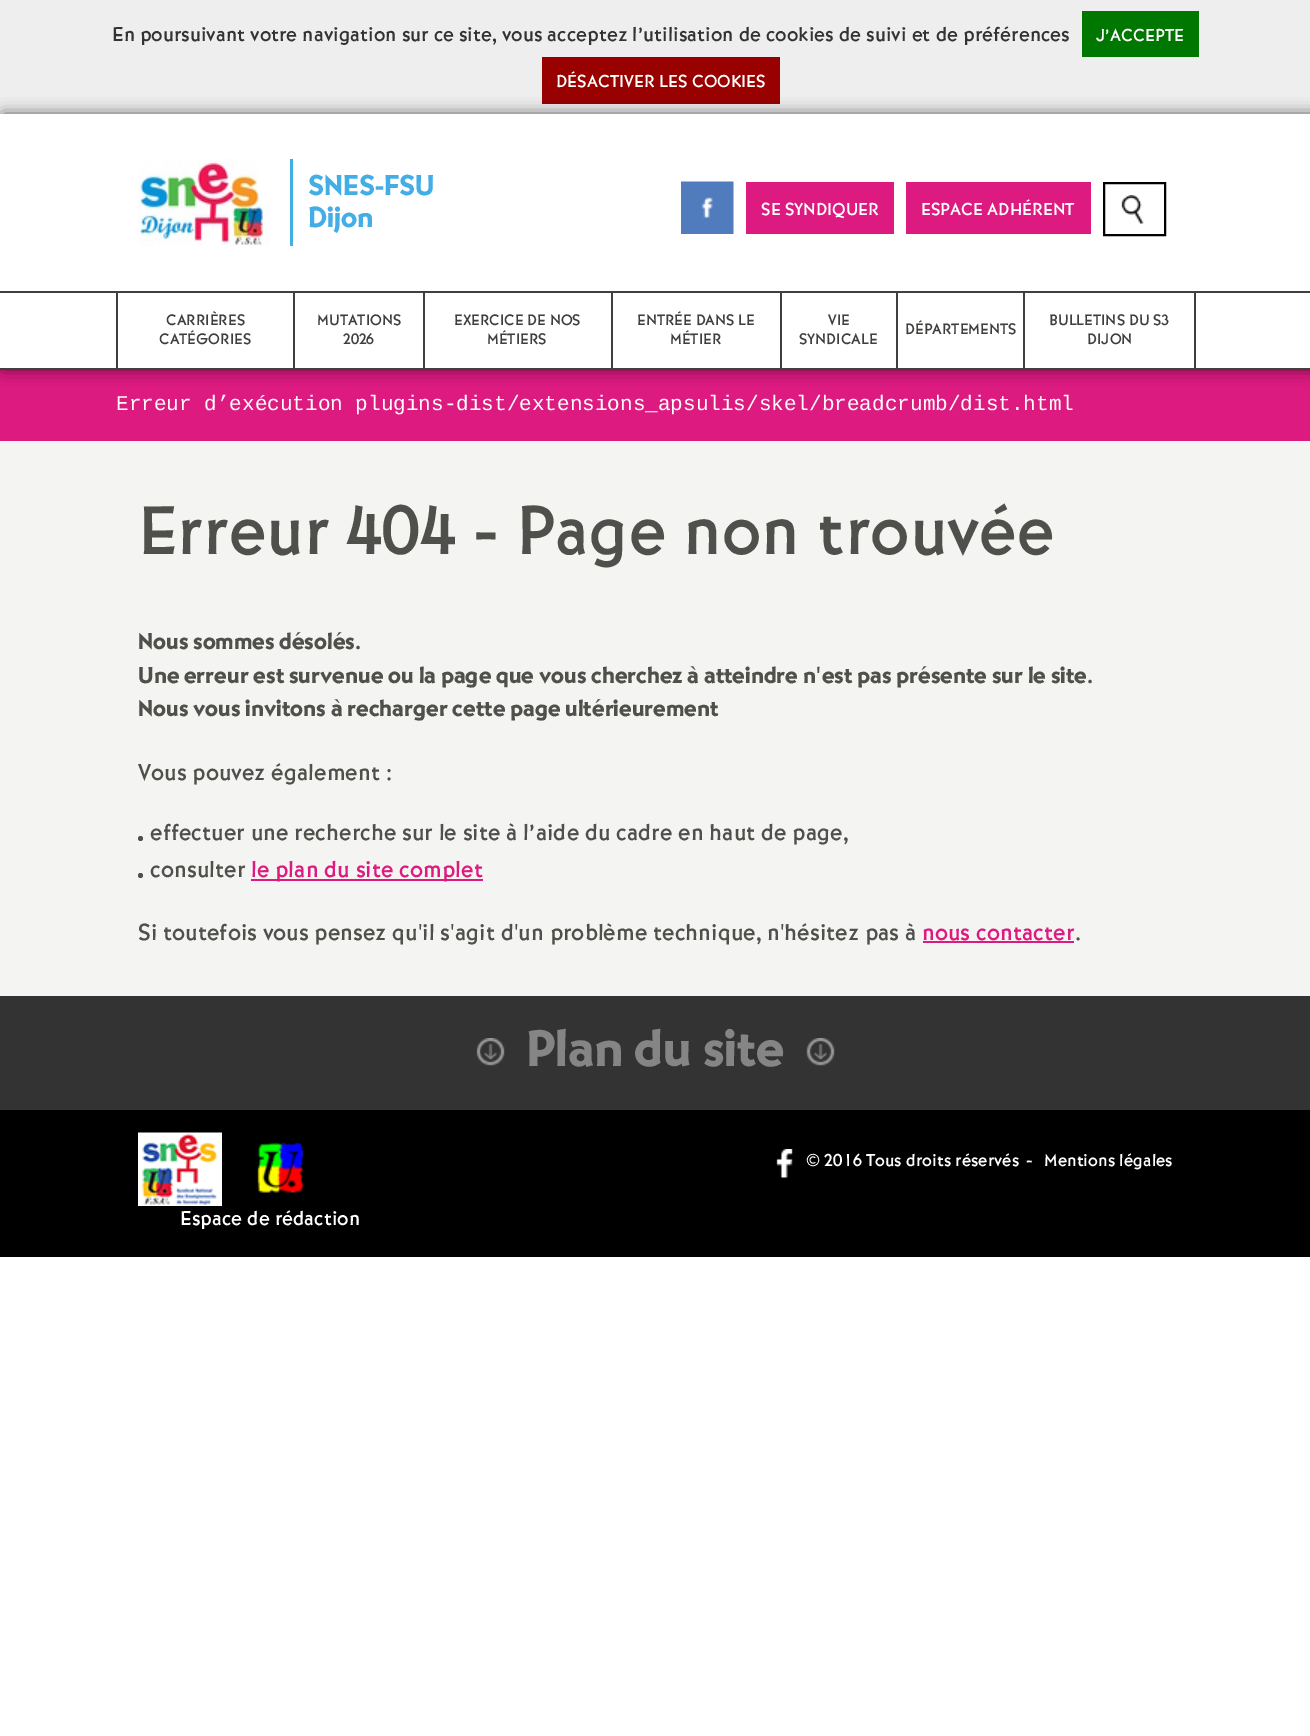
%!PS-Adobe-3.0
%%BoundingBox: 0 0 1310 1736
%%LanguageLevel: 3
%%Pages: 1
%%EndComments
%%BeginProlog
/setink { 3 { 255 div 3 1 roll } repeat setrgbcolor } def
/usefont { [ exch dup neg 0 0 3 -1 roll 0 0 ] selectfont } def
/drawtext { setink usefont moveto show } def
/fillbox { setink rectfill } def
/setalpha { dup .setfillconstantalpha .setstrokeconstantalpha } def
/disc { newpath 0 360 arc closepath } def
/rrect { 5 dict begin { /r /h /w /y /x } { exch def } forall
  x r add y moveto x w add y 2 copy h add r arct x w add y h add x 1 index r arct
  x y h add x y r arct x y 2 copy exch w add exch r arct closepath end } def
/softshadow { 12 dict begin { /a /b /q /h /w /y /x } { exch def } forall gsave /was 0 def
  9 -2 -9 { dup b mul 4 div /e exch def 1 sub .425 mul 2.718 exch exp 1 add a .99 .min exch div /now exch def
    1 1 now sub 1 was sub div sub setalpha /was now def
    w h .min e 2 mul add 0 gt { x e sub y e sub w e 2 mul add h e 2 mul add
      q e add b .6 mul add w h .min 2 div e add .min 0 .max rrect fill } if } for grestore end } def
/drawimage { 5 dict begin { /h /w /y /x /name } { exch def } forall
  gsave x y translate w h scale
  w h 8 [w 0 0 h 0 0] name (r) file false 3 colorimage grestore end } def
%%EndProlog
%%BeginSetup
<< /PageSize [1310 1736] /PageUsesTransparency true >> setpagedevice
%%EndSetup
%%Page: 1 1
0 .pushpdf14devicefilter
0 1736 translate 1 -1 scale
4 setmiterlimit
0 0 1310 1736 255 255 255 fillbox
0 0 1310 114 238 238 238 fillbox
(En poursuivant votre navigation sur ce site, vous acceptez l’utilisation de cookies de suivi et de préférences) 112 41 /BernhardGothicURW-Medium 21 51 51 51 drawtext
1082 11 117 46 0 119 0 fillbox
(J’ACCEPTE) 1096 41 /BernhardGothicURW-Medium 18 255 255 255 drawtext
542 57 238 47 153 0 0 fillbox
(DÉSACTIVER LES COOKIES) 556 87 /BernhardGothicURW-Medium 18 255 255 255 drawtext
0 370 1310 71 220 26 128 fillbox
gsave
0 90 moveto 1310 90 lineto 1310 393 lineto 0 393 lineto closepath 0 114 moveto 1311 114 lineto 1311 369 lineto 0 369 lineto closepath eoclip newpath
0 0 0 setink
3 114 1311 255 0 7.5 0.6 softshadow
grestore
(assets/img1.rgb) 138 159 132 87 drawimage
290 159 3 87 67 174 230 fillbox
(SNES-FSU) 308 195 /BernhardGothicURW-Black 30 67 174 230 drawtext
(Dijon) 308 227 /BernhardGothicURW-Black 30 67 174 230 drawtext
(assets/img2.rgb) 681 181 53 53 drawimage
746 182 148 52 220 26 128 fillbox
(SE SYNDIQUER) 761 215 /BernhardGothicURW-Medium 18 255 255 255 drawtext
906 182 185 52 220 26 128 fillbox
(ESPACE ADHÉRENT) 921 215 /BernhardGothicURW-Medium 18 255 255 255 drawtext
0 0 0 setink
2 setlinewidth
1104 183 61 52 rectstroke
(assets/img3.rgb) 1121 195 23 30 drawimage
0 291 1310 2 63 64 61 fillbox
0 368 1310 2 63 64 61 fillbox
116 293 2 75 63 64 61 fillbox
(CARRIÈRES) 166 325 /BernhardGothicURW-Medium 15.75 63 64 61 drawtext
(CATÉGORIES) 159 344 /BernhardGothicURW-Medium 15.75 63 64 61 drawtext
293 293 2 75 63 64 61 fillbox
(MUTATIONS) 317 325 /BernhardGothicURW-Medium 15.75 63 64 61 drawtext
(2026) 343 344 /BernhardGothicURW-Medium 15.75 63 64 61 drawtext
423 293 2 75 63 64 61 fillbox
(EXERCICE DE NOS) 454 325 /BernhardGothicURW-Medium 15.75 63 64 61 drawtext
(MÉTIERS) 487 344 /BernhardGothicURW-Medium 15.75 63 64 61 drawtext
611 293 2 75 63 64 61 fillbox
(ENTRÉE DANS LE) 637 325 /BernhardGothicURW-Medium 15.75 63 64 61 drawtext
(MÉTIER) 670 344 /BernhardGothicURW-Medium 15.75 63 64 61 drawtext
780 293 2 75 63 64 61 fillbox
(VIE) 828 325 /BernhardGothicURW-Medium 15.75 63 64 61 drawtext
(SYNDICALE) 799 344 /BernhardGothicURW-Medium 15.75 63 64 61 drawtext
896 293 2 75 63 64 61 fillbox
(DÉPARTEMENTS) 905 334 /BernhardGothicURW-Medium 15.75 63 64 61 drawtext
1194 293 2 75 63 64 61 fillbox
1023 293 2 75 63 64 61 fillbox
(BULLETINS DU S3) 1049 325 /BernhardGothicURW-Medium 15.75 63 64 61 drawtext
(DIJON) 1087 344 /BernhardGothicURW-Medium 15.75 63 64 61 drawtext
(Erreur d’exécution plugins-dist/extensions_apsulis/skel/breadcrumb/dist.html) 116 410 /LiberationMono-Regular 21 255 255 255 drawtext
0 441 1310 555 244 244 242 fillbox
(Erreur 404 - Page non trouvée) 138 554 /BernhardGothicURW-Medium 72 79 80 76 drawtext
(Nous sommes désolés.) 138 649 /BernhardGothicURW-Black 24 79 80 76 drawtext
(Une erreur est survenue ou la page que vous cherchez à atteindre n'est pas présente sur le site.) 138 683 /BernhardGothicURW-Black 24 79 80 76 drawtext
(Nous vous invitons à recharger cette page ultérieurement) 138 716 /BernhardGothicURW-Black 24 79 80 76 drawtext
(Vous pouvez également :) 138 780 /BernhardGothicURW-Medium 24 79 80 76 drawtext
140.5 838.5 2.5 disc fill
(effectuer une recherche sur le site à l’aide du cadre en haut de page,) 150 840 /BernhardGothicURW-Medium 24 79 80 76 drawtext
140.5 875.5 2.5 disc fill
(consulter) 150 877 /BernhardGothicURW-Medium 24 79 80 76 drawtext
251 879 232 2 220 26 128 fillbox
(le plan du site complet) 251 877 /BernhardGothicURW-Medium 24 220 26 128 drawtext
(Si toutefois vous pensez qu'il s'agit d'un problème technique, n'hésitez pas à) 138 940 /BernhardGothicURW-Medium 24 79 80 76 drawtext
(nous contacter) 922 940 /BernhardGothicURW-Medium 24 220 26 128 drawtext
923 941 151 2 220 26 128 fillbox
(.) 1075 940 /BernhardGothicURW-Medium 24 79 80 76 drawtext
0 996 1310 114 51 51 51 fillbox
(assets/img4.rgb) 476 1038 29 28 drawimage
(Plan du site) 526 1066 /BernhardGothicURW-Black 54 133 133 133 drawtext
(assets/img4.rgb) 806 1038 29 28 drawimage
0 1110 1310 147 0 0 0 fillbox
(assets/img5.rgb) 776 1149 17 29 drawimage
(© 2016 Tous droits réservés) 806 1166 /BernhardGothicURW-Medium 18 255 255 255 drawtext
(-) 1026 1166 /BernhardGothicURW-Medium 18 255 255 255 drawtext
(Mentions légales) 1044 1166 /BernhardGothicURW-Medium 18 255 255 255 drawtext
(assets/img6.rgb) 138 1132 84 74 drawimage
(assets/img7.rgb) 257 1142 47 51 drawimage
(Espace de rédaction) 180 1225 /BernhardGothicURW-Medium 21 255 255 255 drawtext
.poppdf14devicefilter showpage
%%EOF
